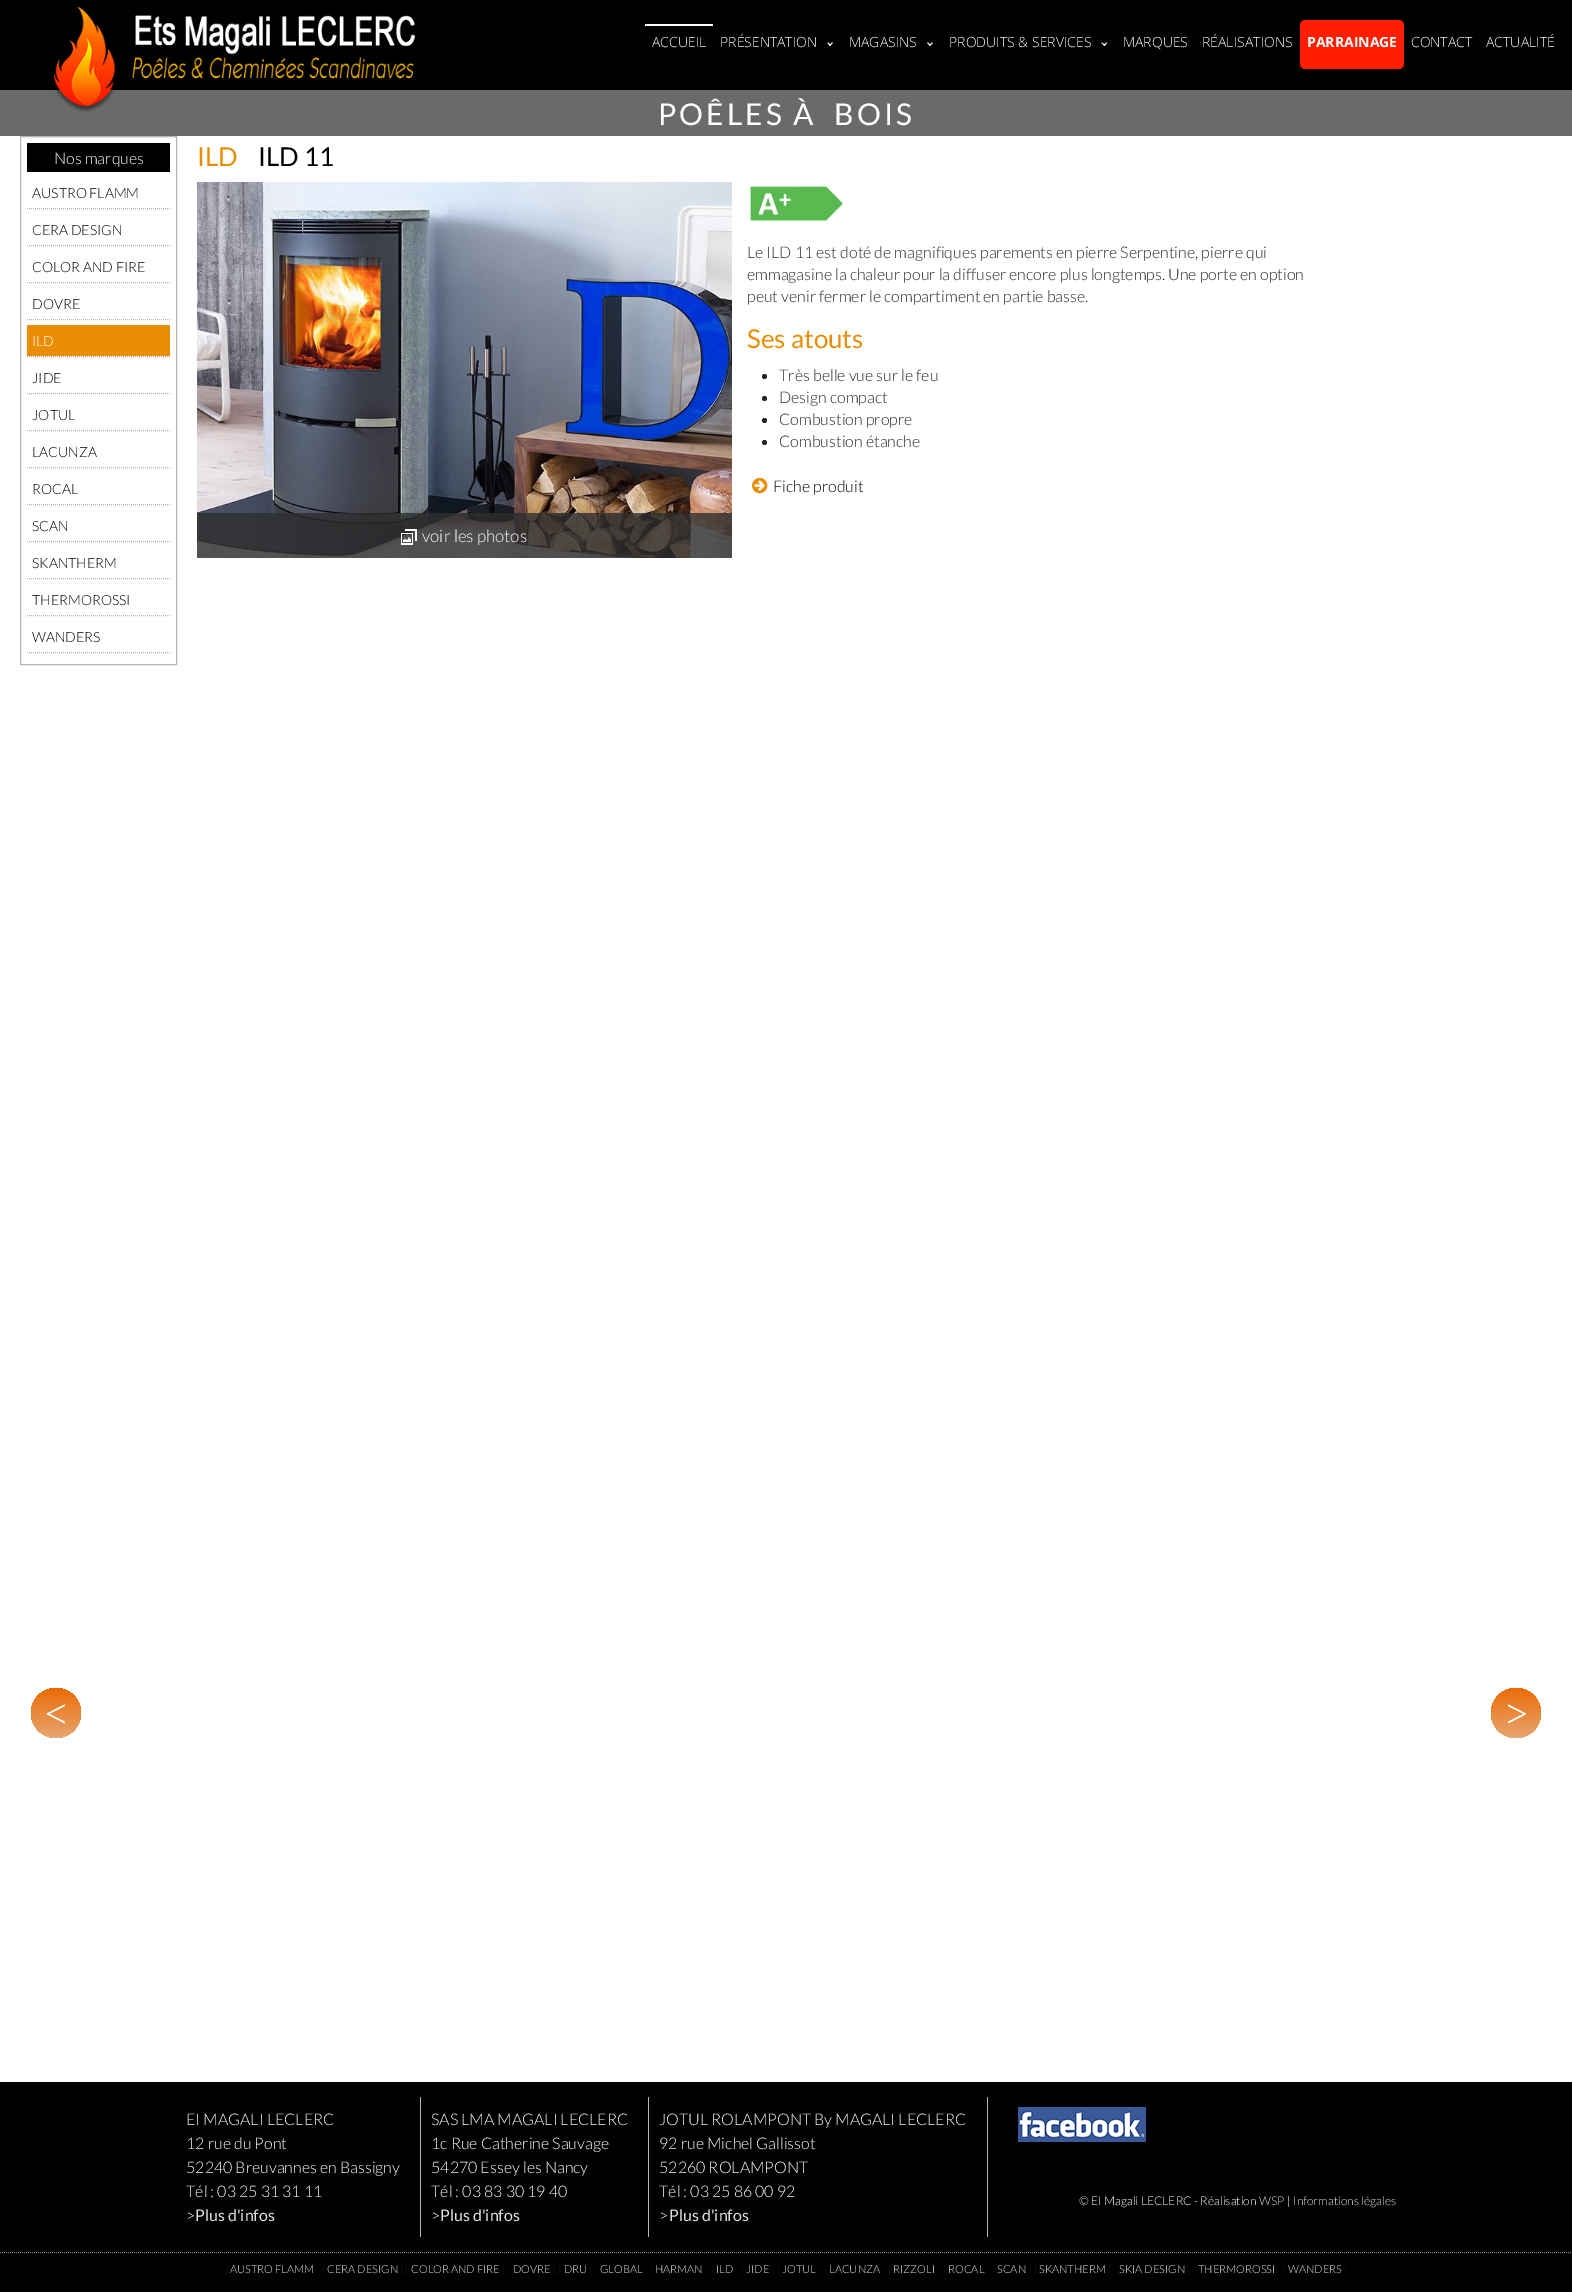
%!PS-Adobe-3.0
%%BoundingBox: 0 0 1572 2292
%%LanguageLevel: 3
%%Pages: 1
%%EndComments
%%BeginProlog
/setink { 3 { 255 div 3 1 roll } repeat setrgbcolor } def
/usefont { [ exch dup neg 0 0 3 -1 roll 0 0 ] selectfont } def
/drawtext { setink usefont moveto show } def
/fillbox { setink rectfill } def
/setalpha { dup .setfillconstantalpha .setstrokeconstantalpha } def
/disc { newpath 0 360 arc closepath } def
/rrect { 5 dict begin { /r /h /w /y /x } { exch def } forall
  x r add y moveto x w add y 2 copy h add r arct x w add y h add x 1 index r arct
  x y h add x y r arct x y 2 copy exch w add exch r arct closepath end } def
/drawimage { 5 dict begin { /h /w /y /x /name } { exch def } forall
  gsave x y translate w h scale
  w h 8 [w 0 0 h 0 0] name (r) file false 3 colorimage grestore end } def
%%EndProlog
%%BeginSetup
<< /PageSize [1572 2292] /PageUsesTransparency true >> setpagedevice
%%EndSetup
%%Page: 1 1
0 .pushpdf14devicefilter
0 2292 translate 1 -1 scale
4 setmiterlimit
0 0 1572 2292 255 255 255 fillbox
0 0 1572 90 0 0 0 fillbox
0 90 1572 46 106 106 106 fillbox
(assets/img1.rgb) 54 7 362 105 drawimage
645 24 68 2 255 255 255 fillbox
(ACCUEIL) 652 47 /OpenSans-Light 14 255 255 255 drawtext
(PRÉSENTATION) 720 47 /OpenSans-Light 14 255 255 255 drawtext
832 42.5 moveto 833 43 lineto 830 46 lineto 829.5 45 lineto closepath fill
828 42.5 moveto 831 45 lineto 830 46 lineto 827.5 43 lineto closepath fill
(MAGASINS) 849 47 /OpenSans-Light 14 255 255 255 drawtext
932 42.5 moveto 933 43 lineto 930 46 lineto 929.5 45 lineto closepath fill
928 42.5 moveto 930.5 45 lineto 930 46 lineto 927 43 lineto closepath fill
(PRODUITS & SERVICES) 949 47 /OpenSans-Light 14 255 255 255 drawtext
1106.5 42.5 moveto 1107 43 lineto 1104.5 46 lineto 1103.5 45 lineto closepath fill
1102 42.5 moveto 1105 45 lineto 1104.5 46 lineto 1101.5 43 lineto closepath fill
(MARQUES) 1123 47 /OpenSans-Light 14 255 255 255 drawtext
(RÉALISATIONS) 1202 47 /OpenSans-Light 14 255 255 255 drawtext
255 31 0 setink
1300 20 104 49 5 rrect fill
(PARRAINAGE) 1307 47 /OpenSans-Bold 14 255 255 255 drawtext
(CONTACT) 1411 47 /OpenSans-Light 14 255 255 255 drawtext
(ACTUALITÉ) 1486 47 /OpenSans-Light 14 255 255 255 drawtext
/Lato-Regular 30 usefont
658 125 moveto 3 0 (POÊLES À  BOIS) ashow
181 181 181 setink
20.5 136.5 156 528 rectstroke
27 143 143 29 0 0 0 fillbox
(Nos marques) 54 164 /Lato-Light 16 255 255 255 drawtext
181 181 181 setink
[1 1] 0 setdash
27 208.5 moveto 170 208.5 lineto stroke
(AUSTRO FLAMM) 32 198 /Lato-Light 14 0 0 0 drawtext
181 181 181 setink
27 245.5 moveto 170 245.5 lineto stroke
(CERA DESIGN) 32 235 /Lato-Light 14 0 0 0 drawtext
181 181 181 setink
27 282.5 moveto 170 282.5 lineto stroke
(COLOR AND FIRE) 32 272 /Lato-Light 14 0 0 0 drawtext
181 181 181 setink
27 319.5 moveto 170 319.5 lineto stroke
(DOVRE) 32 309 /Lato-Light 14 0 0 0 drawtext
181 181 181 setink
27 356.5 moveto 170 356.5 lineto stroke
27 325 143 31 234 141 6 fillbox
(ILD) 32 346 /Lato-Light 14 255 255 255 drawtext
181 181 181 setink
27 393.5 moveto 170 393.5 lineto stroke
(JIDE) 32 383 /Lato-Light 14 0 0 0 drawtext
181 181 181 setink
27 430.5 moveto 170 430.5 lineto stroke
(JOTUL) 32 420 /Lato-Light 14 0 0 0 drawtext
181 181 181 setink
27 467.5 moveto 170 467.5 lineto stroke
(LACUNZA) 32 457 /Lato-Light 14 0 0 0 drawtext
181 181 181 setink
27 504.5 moveto 170 504.5 lineto stroke
(ROCAL) 32 494 /Lato-Light 14 0 0 0 drawtext
181 181 181 setink
27 541.5 moveto 170 541.5 lineto stroke
(SCAN) 32 531 /Lato-Light 14 0 0 0 drawtext
181 181 181 setink
27 578.5 moveto 170 578.5 lineto stroke
(SKANTHERM) 32 568 /Lato-Light 14 0 0 0 drawtext
181 181 181 setink
27 615.5 moveto 170 615.5 lineto stroke
(THERMOROSSI) 32 605 /Lato-Light 14 0 0 0 drawtext
181 181 181 setink
27 652.5 moveto 170 652.5 lineto stroke
(WANDERS) 32 642 /Lato-Light 14 0 0 0 drawtext
(ILD) 197 166 /Lato-Regular 26 234 141 6 drawtext
(ILD 11) 258 166 /Lato-Regular 26 0 0 0 drawtext
(assets/img2.rgb) 750 186 93 35 drawimage
(Le ILD 11 est doté de magnifiques parements en pierre Serpentine, pierre qui) 747 258 /Lato-Light 16 41 36 31 drawtext
(emmagasine la chaleur pour la diffuser encore plus longtemps. Une porte en option) 747 280 /Lato-Light 16 41 36 31 drawtext
(peut venir fermer le compartiment en partie basse.) 747 302 /Lato-Light 16 41 36 31 drawtext
(Ses atouts) 747 348 /Lato-Regular 26 234 141 6 drawtext
41 36 31 setink
764.5 376.5 2.5 disc fill
(Très belle vue sur le feu) 779 381 /Lato-Light 16 41 36 31 drawtext
764.5 398.5 2.5 disc fill
(Design compact) 779 403 /Lato-Light 16 41 36 31 drawtext
764.5 420.5 2.5 disc fill
(Combustion propre) 779 425 /Lato-Light 16 41 36 31 drawtext
764.5 442.5 2.5 disc fill
(Combustion étanche) 779 447 /Lato-Light 16 41 36 31 drawtext
(assets/img3.rgb) 752 477 16 17 drawimage
(Fiche produit) 773 492 /Lato-Light 16 0 0 0 drawtext
(assets/img4.rgb) 197 182 535 376 drawimage
0.8 setalpha
197 513 535 45 46 46 46 fillbox
1 setalpha
(assets/img5.rgb) 401 529 16 16 drawimage
(voir les photos) 422 542 /Lato-Light 17 255 255 255 drawtext
gsave 56 1713 25 disc clip newpath
<< /ShadingType 2 /ColorSpace /DeviceRGB /Coords [56 1688 56 1738] /Extend [true true] /Function << /FunctionType 2 /Domain [0 1] /C0 [0.918 0.424 0.024] /C1 [0.91 0.651 0.443] /N 1 >> >> shfill grestore
(<) 43 1730 /Lato-Light 48 255 255 255 drawtext
gsave 1516 1713 25 disc clip newpath
<< /ShadingType 2 /ColorSpace /DeviceRGB /Coords [1516 1688 1516 1738] /Extend [true true] /Function << /FunctionType 2 /Domain [0 1] /C0 [0.918 0.424 0.024] /C1 [0.91 0.651 0.443] /N 1 >> >> shfill grestore
(>) 1502 1730 /Lato-Light 48 255 255 255 drawtext
0 2082 1572 210 0 0 0 fillbox
420 2097 1 140 182 182 182 fillbox
(EI MAGALI LECLERC) 186 2125 /Lato-Light 16 255 255 255 drawtext
(12 rue du Pont) 186 2149 /Lato-Light 16 255 255 255 drawtext
(52240 Breuvannes en Bassigny) 186 2173 /Lato-Light 16 255 255 255 drawtext
(Tél : 03 25 31 31 11) 186 2197 /Lato-Light 16 255 255 255 drawtext
(>) 186 2221 /Lato-Light 16 255 255 255 drawtext
(Plus d'infos) 195 2221 /Lato-Regular 16 223 223 223 drawtext
648 2097 1 140 182 182 182 fillbox
(SAS LMA MAGALI LECLERC) 431 2125 /Lato-Light 16 255 255 255 drawtext
(1c Rue Catherine Sauvage) 431 2149 /Lato-Light 16 255 255 255 drawtext
(54270 Essey les Nancy) 431 2173 /Lato-Light 16 255 255 255 drawtext
(Tél : 03 83 30 19 40) 431 2197 /Lato-Light 16 255 255 255 drawtext
(>) 431 2221 /Lato-Light 16 255 255 255 drawtext
(Plus d'infos) 440 2221 /Lato-Regular 16 223 223 223 drawtext
987 2097 1 140 182 182 182 fillbox
(JOTUL ROLAMPONT By MAGALI LECLERC) 659 2125 /Lato-Light 16 255 255 255 drawtext
(92 rue Michel Gallissot) 659 2149 /Lato-Light 16 255 255 255 drawtext
(52260 ROLAMPONT) 659 2173 /Lato-Light 16 255 255 255 drawtext
(Tél : 03 25 86 00 92) 659 2197 /Lato-Light 16 255 255 255 drawtext
(>) 659 2221 /Lato-Light 16 255 255 255 drawtext
(Plus d'infos) 669 2221 /Lato-Regular 16 223 223 223 drawtext
(assets/img6.rgb) 1018 2107 128 35 drawimage
(© EI Magali LECLERC - Réalisation) 1079 2205 /Lato-Light 12 255 255 255 drawtext
(WSP) 1259 2205 /Lato-Light 12 223 223 223 drawtext
(|) 1287 2205 /Lato-Light 12 255 255 255 drawtext
(Informations légales) 1293 2205 /Lato-Light 12 223 223 223 drawtext
130 130 130 setink
0 2252.5 moveto 1572 2252.5 lineto stroke
(|) 225 2273 /Lato-Light 11 41 36 31 drawtext
(AUSTRO FLAMM) 230 2273 /Lato-Light 11 223 223 223 drawtext
(|) 322 2273 /Lato-Light 11 41 36 31 drawtext
(CERA DESIGN) 327 2273 /Lato-Light 11 223 223 223 drawtext
(| |) 400 2273 /Lato-Light 11 41 36 31 drawtext
(COLOR AND FIRE) 411 2273 /Lato-Light 11 223 223 223 drawtext
(|) 502 2273 /Lato-Light 11 41 36 31 drawtext
(DOVRE) 513 2273 /Lato-Light 11 223 223 223 drawtext
(| |) 553 2273 /Lato-Light 11 41 36 31 drawtext
(DRU) 564 2273 /Lato-Light 11 223 223 223 drawtext
(|) 589 2273 /Lato-Light 11 41 36 31 drawtext
(GLOBAL) 600 2273 /Lato-Light 11 223 223 223 drawtext
(|) 650 2273 /Lato-Light 11 41 36 31 drawtext
(HARMAN) 655 2273 /Lato-Light 11 223 223 223 drawtext
(|) 711 2273 /Lato-Light 11 41 36 31 drawtext
(ILD) 716 2273 /Lato-Light 11 223 223 223 drawtext
(|) 741 2273 /Lato-Light 11 41 36 31 drawtext
(JIDE) 746 2273 /Lato-Light 11 223 223 223 drawtext
(| |) 772 2273 /Lato-Light 11 41 36 31 drawtext
(JOTUL) 782 2273 /Lato-Light 11 223 223 223 drawtext
(|) 824 2273 /Lato-Light 11 41 36 31 drawtext
(LACUNZA) 829 2273 /Lato-Light 11 223 223 223 drawtext
(|) 888 2273 /Lato-Light 11 41 36 31 drawtext
(RIZZOLI) 893 2273 /Lato-Light 11 223 223 223 drawtext
(|) 943 2273 /Lato-Light 11 41 36 31 drawtext
(ROCAL) 948 2273 /Lato-Light 11 223 223 223 drawtext
(|) 992 2273 /Lato-Light 11 41 36 31 drawtext
(SCAN) 997 2273 /Lato-Light 11 223 223 223 drawtext
(|) 1034 2273 /Lato-Light 11 41 36 31 drawtext
(SKANTHERM) 1039 2273 /Lato-Light 11 223 223 223 drawtext
(|) 1108 2273 /Lato-Light 11 41 36 31 drawtext
(SKIA DESIGN) 1119 2273 /Lato-Light 11 223 223 223 drawtext
(|) 1187 2273 /Lato-Light 11 41 36 31 drawtext
(THERMOROSSI) 1198 2273 /Lato-Light 11 223 223 223 drawtext
(|) 1283 2273 /Lato-Light 11 41 36 31 drawtext
(WANDERS) 1288 2273 /Lato-Light 11 223 223 223 drawtext
(|) 1344 2273 /Lato-Light 11 41 36 31 drawtext
.poppdf14devicefilter showpage
%%EOF
